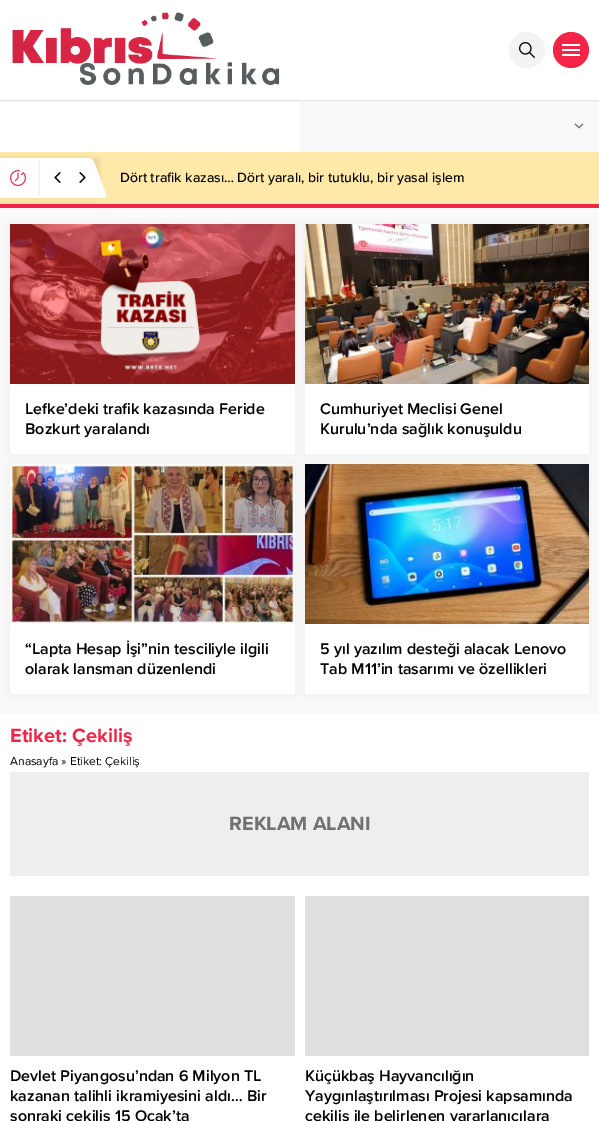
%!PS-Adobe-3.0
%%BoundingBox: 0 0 599 1121
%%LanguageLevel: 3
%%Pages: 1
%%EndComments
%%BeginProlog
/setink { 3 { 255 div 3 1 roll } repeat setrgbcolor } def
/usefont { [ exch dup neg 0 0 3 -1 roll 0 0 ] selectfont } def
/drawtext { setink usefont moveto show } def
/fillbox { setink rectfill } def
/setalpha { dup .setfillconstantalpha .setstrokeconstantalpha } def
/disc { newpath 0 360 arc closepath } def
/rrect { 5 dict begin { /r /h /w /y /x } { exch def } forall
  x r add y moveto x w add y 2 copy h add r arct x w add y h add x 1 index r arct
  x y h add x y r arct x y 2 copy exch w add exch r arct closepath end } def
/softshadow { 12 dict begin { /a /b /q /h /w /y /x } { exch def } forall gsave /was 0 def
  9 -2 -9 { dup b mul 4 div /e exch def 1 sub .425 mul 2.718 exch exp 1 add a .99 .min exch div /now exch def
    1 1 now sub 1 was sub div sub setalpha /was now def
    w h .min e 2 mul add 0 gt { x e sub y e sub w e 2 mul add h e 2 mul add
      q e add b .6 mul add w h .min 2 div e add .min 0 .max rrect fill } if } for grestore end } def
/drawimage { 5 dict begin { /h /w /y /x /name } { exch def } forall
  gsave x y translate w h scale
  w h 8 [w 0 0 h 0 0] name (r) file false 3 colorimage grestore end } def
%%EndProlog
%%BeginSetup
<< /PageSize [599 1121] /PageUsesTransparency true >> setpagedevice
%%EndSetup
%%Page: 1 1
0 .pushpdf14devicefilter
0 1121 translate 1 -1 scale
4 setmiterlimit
0 0 599 1121 255 255 255 fillbox
0 100 300 1 243 243 243 fillbox
300 100 299 52 249 249 249 fillbox
gsave
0 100 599 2 rectclip
0 0 0 setink
0 0 599 100 0 1.5 0.15 softshadow
grestore
(assets/img1.rgb) 12 12 268 73 drawimage
243 243 243 setink
527 50 18 disc fill
(assets/img2.rgb) 519 42 16 16 drawimage
244 36 71 setink
571 50 18 disc fill
(assets/img3.rgb) 562 44 18 12 drawimage
(assets/img4.rgb) 574 123 10 6 drawimage
0 152 599 52 255 233 168 fillbox
0 0 0 setink
-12 158 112 40 4 2.5 0.07 softshadow
255 255 255 setink
-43 158 moveto 89 158 lineto 91 158 93 160 94 162 curveto 106 194 lineto 107 196 105 198 103 198 curveto -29 198 lineto -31 198 -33 196 -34 194 curveto -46 162 lineto -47 160 -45 158 -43 158 curveto closepath fill
(assets/img5.rgb) 10 170 16 16 drawimage
0 204 599 4 244 36 71 fillbox
gsave
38 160 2 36 rectclip
0 0 0 setink
40 160 50 36 0 2.5 0.1 softshadow
grestore
(assets/img6.rgb) 54 172 7 11 drawimage
(assets/img7.rgb) 79 172 7 11 drawimage
(Dört trafik kazası… Dört yaralı, bir tutuklu, bir yasal işlem) 120 182 /ProximaNova-Medium 14 0 0 0 drawtext
0 208 599 506 249 249 249 fillbox
0 0 0 setink
10 224 285 230 0 4 0.05 softshadow
10 384 285 70 255 255 255 fillbox
0 0 0 setink
305 224 284 230 0 4 0.05 softshadow
(assets/img8.rgb) 10 224 285 160 drawimage
(Lefke’deki trafik kazasında Feride) 25 414 /ProximaNova-SemiBold 16 0 0 0 drawtext
(Bozkurt yaralandı) 25 434 /ProximaNova-SemiBold 16 0 0 0 drawtext
(assets/img9.rgb) 305 224 284 160 drawimage
305 384 284 70 255 255 255 fillbox
(Cumhuriyet Meclisi Genel) 320 414 /ProximaNova-SemiBold 16 0 0 0 drawtext
(Kurulu’nda sağlık konuşuldu) 320 434 /ProximaNova-SemiBold 16 0 0 0 drawtext
10 464 285 230 0 4 0.05 softshadow
10 624 285 70 255 255 255 fillbox
0 0 0 setink
305 464 284 230 0 4 0.05 softshadow
(assets/img10.rgb) 10 464 285 160 drawimage
(“Lapta Hesap İşi”nin tesciliyle ilgili) 25 654 /ProximaNova-SemiBold 16 0 0 0 drawtext
(olarak lansman düzenlendi) 25 674 /ProximaNova-SemiBold 16 0 0 0 drawtext
(assets/img11.rgb) 305 464 284 160 drawimage
305 624 284 70 255 255 255 fillbox
(5 yıl yazılım desteği alacak Lenovo) 320 654 /ProximaNova-SemiBold 16 0 0 0 drawtext
(Tab M11’in tasarımı ve özellikleri) 320 674 /ProximaNova-SemiBold 16 0 0 0 drawtext
(Etiket: Çekiliş) 10 742 /ProximaNova-Bold 20 244 36 71 drawtext
(Anasayfa » Etiket: Çekiliş) 10 765 /ProximaNova-Regular 12 0 0 0 drawtext
10 772 579 104 238 238 238 fillbox
(REKLAM ALANI) 229 830 /ProximaNova-Bold 20 113 113 113 drawtext
10 896 285 160 223 223 223 fillbox
(Devlet Piyangosu’ndan 6 Milyon TL) 10 1081 /ProximaNova-SemiBold 16 0 0 0 drawtext
(kazanan talihli ikramiyesini aldı… Bir) 10 1101 /ProximaNova-SemiBold 16 0 0 0 drawtext
(sonraki çekiliş 15 Ocak’ta) 10 1121 /ProximaNova-SemiBold 16 0 0 0 drawtext
305 896 284 160 223 223 223 fillbox
(Küçükbaş Hayvancılığın) 305 1081 /ProximaNova-SemiBold 16 0 0 0 drawtext
(Yaygınlaştırılması Projesi kapsamında) 305 1101 /ProximaNova-SemiBold 16 0 0 0 drawtext
(çekiliş ile belirlenen yararlanıcılara) 305 1121 /ProximaNova-SemiBold 16 0 0 0 drawtext
.poppdf14devicefilter showpage
%%EOF
